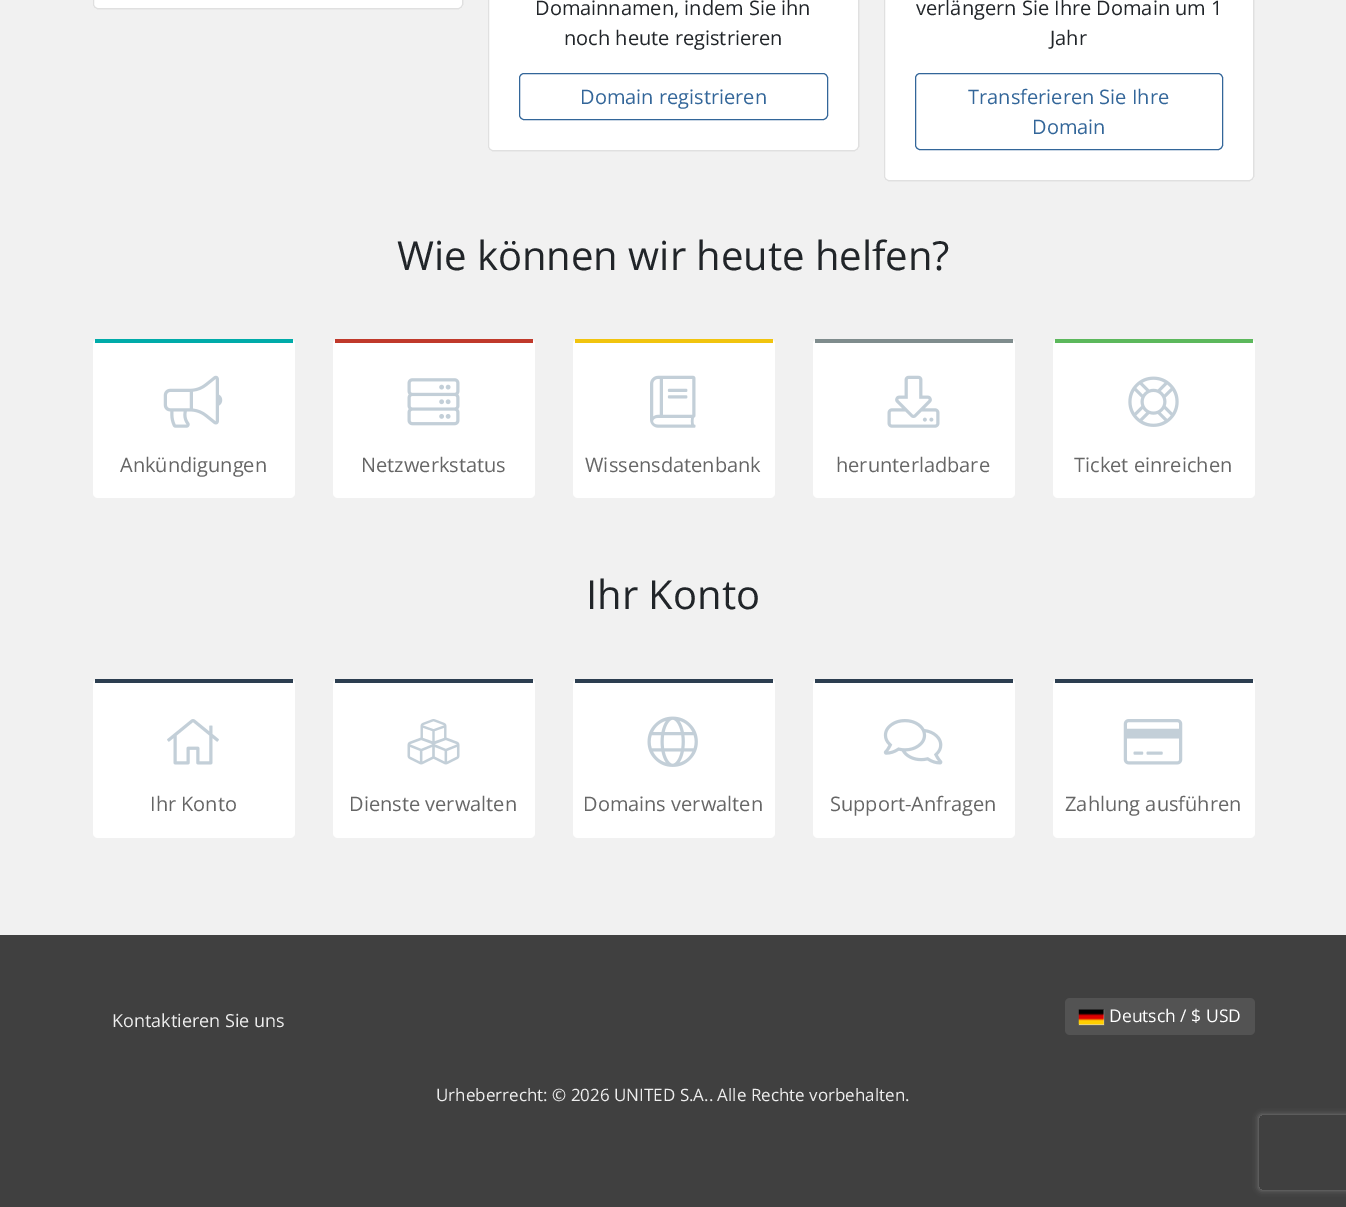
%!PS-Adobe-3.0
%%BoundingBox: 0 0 1346 1207
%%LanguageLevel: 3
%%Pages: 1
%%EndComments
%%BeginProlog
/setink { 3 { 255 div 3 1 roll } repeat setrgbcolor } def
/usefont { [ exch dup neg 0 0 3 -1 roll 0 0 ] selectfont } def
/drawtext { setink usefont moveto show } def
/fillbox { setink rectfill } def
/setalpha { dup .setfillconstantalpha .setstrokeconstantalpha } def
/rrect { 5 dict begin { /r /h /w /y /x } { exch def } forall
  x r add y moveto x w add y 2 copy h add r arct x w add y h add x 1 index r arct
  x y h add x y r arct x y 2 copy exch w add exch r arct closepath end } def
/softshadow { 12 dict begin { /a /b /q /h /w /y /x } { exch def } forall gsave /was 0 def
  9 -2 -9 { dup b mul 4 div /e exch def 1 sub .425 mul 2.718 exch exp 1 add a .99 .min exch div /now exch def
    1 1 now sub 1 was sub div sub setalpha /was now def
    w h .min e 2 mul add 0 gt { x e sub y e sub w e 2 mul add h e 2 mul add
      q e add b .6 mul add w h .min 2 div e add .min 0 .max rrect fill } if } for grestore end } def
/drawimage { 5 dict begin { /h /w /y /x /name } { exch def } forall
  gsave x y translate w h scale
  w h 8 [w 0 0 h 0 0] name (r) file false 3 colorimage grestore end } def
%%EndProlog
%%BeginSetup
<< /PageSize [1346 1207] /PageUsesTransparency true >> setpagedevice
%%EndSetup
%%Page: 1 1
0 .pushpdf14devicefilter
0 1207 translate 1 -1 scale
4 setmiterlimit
0 0 1346 1207 241 241 241 fillbox
255 255 255 setink
93 -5 370 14 5 rrect fill
0.12 setalpha
0 0 0 setink
93.5 -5.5 369 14 4.5 rrect stroke
1 setalpha
255 255 255 setink
488 -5 371 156 5 rrect fill
0.12 setalpha
0 0 0 setink
488.5 -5.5 370 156 4.5 rrect stroke
1 setalpha
(Domainnamen, indem Sie ihn) 535 15 /OpenSans-Regular 20 33 37 41 drawtext
(noch heute registrieren) 564 45 /OpenSans-Regular 20 33 37 41 drawtext
51 102 153 setink
519.5 73.5 308 46 4.5 rrect stroke
(Domain registrieren) 580 104 /OpenSans-Regular 20 51 102 153 drawtext
255 255 255 setink
884 -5 370 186 5 rrect fill
0.12 setalpha
0 0 0 setink
884.5 -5.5 369 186 4.5 rrect stroke
1 setalpha
(verlängern Sie Ihre Domain um 1) 916 15 /OpenSans-Regular 20 33 37 41 drawtext
(Jahr) 1050 45 /OpenSans-Regular 20 33 37 41 drawtext
51 102 153 setink
915.5 73.5 307 76 4.5 rrect stroke
(Transferieren Sie Ihre) 968 104 /OpenSans-Regular 20 51 102 153 drawtext
(Domain) 1032 134 /OpenSans-Regular 20 51 102 153 drawtext
(Wie können wir heute helfen?) 397 270 /OpenSans-Regular 40 33 37 41 drawtext
255 255 255 setink
93 339 202 159 5 rrect fill
95 339 198 4 0 171 169 fillbox
(assets/img1.rgb) 163 375 60 53 drawimage
(Ankündigungen) 120 472 /OpenSans-Regular 20 102 102 102 drawtext
255 255 255 setink
333 339 202 159 5 rrect fill
335 339 198 4 192 57 43 fillbox
(assets/img2.rgb) 407 378 53 48 drawimage
(Netzwerkstatus) 361 472 /OpenSans-Regular 20 102 102 102 drawtext
255 255 255 setink
573 339 202 159 5 rrect fill
575 339 198 4 241 196 15 fillbox
(assets/img3.rgb) 650 375 46 53 drawimage
(Wissensdatenbank) 585 472 /OpenSans-Regular 20 102 102 102 drawtext
255 255 255 setink
813 339 202 159 5 rrect fill
815 339 198 4 127 140 141 fillbox
(assets/img4.rgb) 887 375 53 53 drawimage
(herunterladbare) 836 472 /OpenSans-Regular 20 102 102 102 drawtext
255 255 255 setink
1053 339 202 159 5 rrect fill
1055 339 198 4 92 184 92 fillbox
(assets/img5.rgb) 1128 376 51 51 drawimage
(Ticket einreichen) 1074 472 /OpenSans-Regular 20 102 102 102 drawtext
(Ihr Konto) 586 609 /OpenSans-Regular 40 33 37 41 drawtext
255 255 255 setink
93 679 202 159 5 rrect fill
95 679 198 4 44 62 80 fillbox
(assets/img6.rgb) 167 719 52 46 drawimage
(Ihr Konto) 150 811 /OpenSans-Regular 20 102 102 102 drawtext
255 255 255 setink
333 679 202 159 5 rrect fill
335 679 198 4 44 62 80 fillbox
(assets/img7.rgb) 407 719 53 46 drawimage
(Dienste verwalten) 349 811 /OpenSans-Regular 20 102 102 102 drawtext
255 255 255 setink
573 679 202 159 5 rrect fill
575 679 198 4 44 62 80 fillbox
(assets/img8.rgb) 647 716 51 51 drawimage
(Domains verwalten) 583 811 /OpenSans-Regular 20 102 102 102 drawtext
255 255 255 setink
813 679 202 159 5 rrect fill
815 679 198 4 44 62 80 fillbox
(assets/img9.rgb) 883 719 60 46 drawimage
(Support-Anfragen) 830 811 /OpenSans-Regular 20 102 102 102 drawtext
255 255 255 setink
1053 679 202 159 5 rrect fill
1055 679 198 4 44 62 80 fillbox
(assets/img10.rgb) 1123 719 60 46 drawimage
(Zahlung ausführen) 1065 811 /OpenSans-Regular 20 102 102 102 drawtext
0 935 1346 272 64 64 64 fillbox
(Kontaktieren Sie uns) 112 1027 /OpenSans-Regular 18 238 238 238 drawtext
83 83 83 setink
1065 998 190 37 5 rrect fill
136 136 136 setink
1079 1010 25 15 0 0.5 1 softshadow
1079 1010 25 15 219 219 219 fillbox
(assets/img11.rgb) 1078 1009 26 16 drawimage
(Deutsch / $ USD) 1109 1022 /OpenSans-Regular 17.5 255 255 255 drawtext
(Urheberrecht: © 2026 UNITED S.A.. Alle Rechte vorbehalten.) 436 1101 /OpenSans-Regular 17 238 238 238 drawtext
gsave
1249 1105 moveto 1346 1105 lineto 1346 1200 lineto 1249 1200 lineto closepath 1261.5 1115 moveto 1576.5 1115 lineto 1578 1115 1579 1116 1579 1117.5 curveto 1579 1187.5 lineto 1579 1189 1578 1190 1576.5 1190 curveto 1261.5 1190 lineto 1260 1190 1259 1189 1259 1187.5 curveto 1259 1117.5 lineto 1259 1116 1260 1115 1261.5 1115 curveto closepath eoclip newpath
128 128 128 setink
1259 1115 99 75 2.5 3 1 softshadow
grestore
.poppdf14devicefilter showpage
%%EOF
